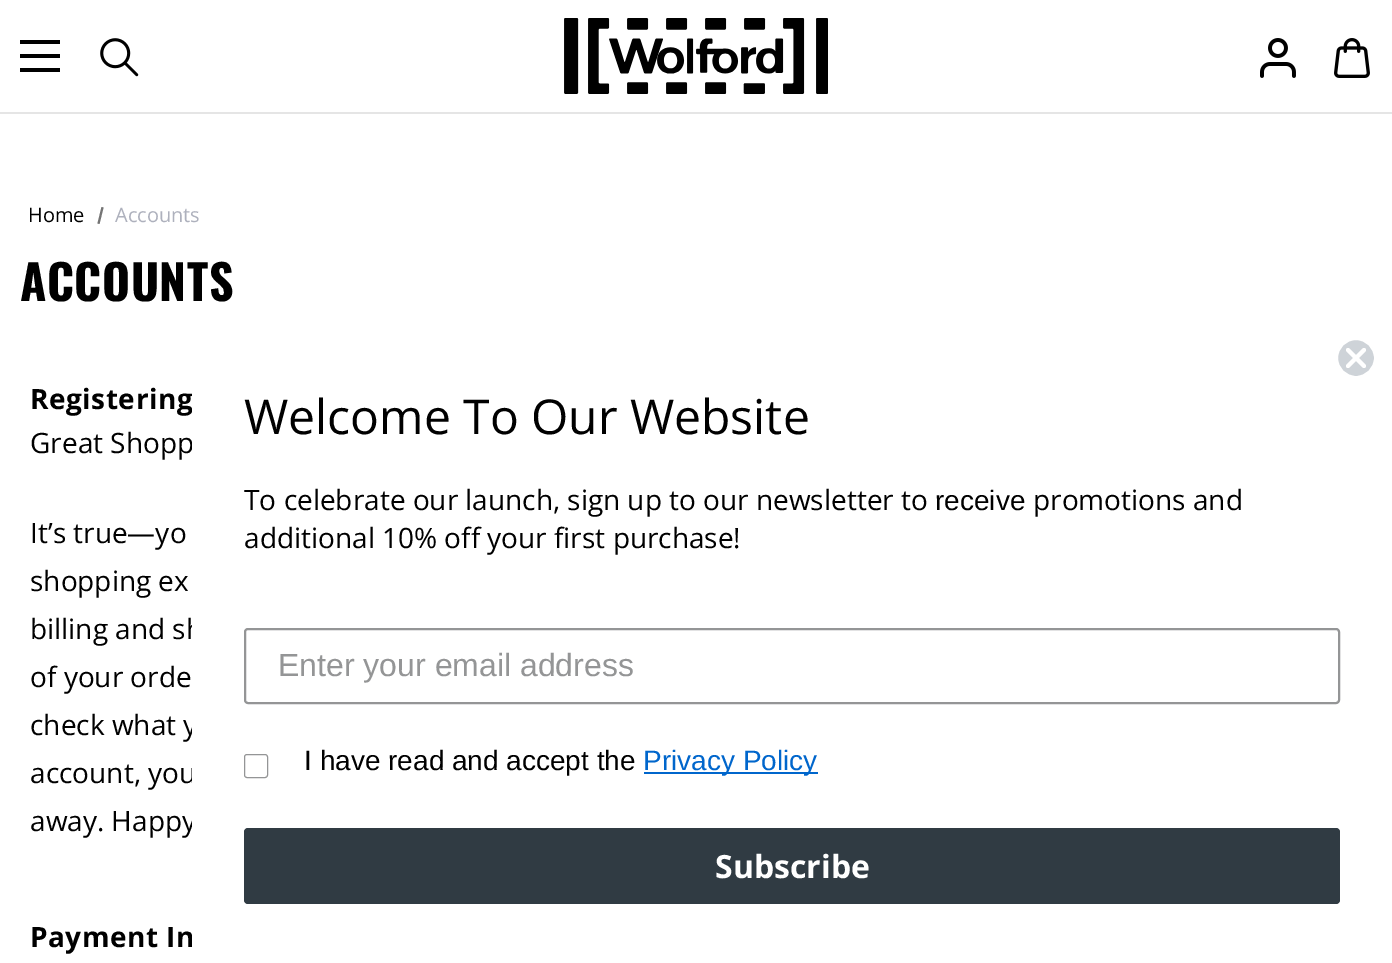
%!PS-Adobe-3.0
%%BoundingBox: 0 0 1392 963
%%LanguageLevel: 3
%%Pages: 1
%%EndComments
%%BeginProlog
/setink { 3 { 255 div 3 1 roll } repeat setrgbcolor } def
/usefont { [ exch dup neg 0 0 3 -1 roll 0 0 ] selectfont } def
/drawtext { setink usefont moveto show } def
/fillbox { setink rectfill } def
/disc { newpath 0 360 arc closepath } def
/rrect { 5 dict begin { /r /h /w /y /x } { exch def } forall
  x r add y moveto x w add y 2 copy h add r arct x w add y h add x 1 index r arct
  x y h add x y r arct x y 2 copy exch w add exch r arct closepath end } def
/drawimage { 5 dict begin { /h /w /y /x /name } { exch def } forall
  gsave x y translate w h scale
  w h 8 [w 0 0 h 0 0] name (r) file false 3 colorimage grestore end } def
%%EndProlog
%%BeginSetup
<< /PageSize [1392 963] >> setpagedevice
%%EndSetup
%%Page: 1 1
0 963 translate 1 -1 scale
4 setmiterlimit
0 0 1392 963 255 255 255 fillbox
0 112 1392 2 229 229 229 fillbox
20 54 40 4 0 0 0 fillbox
20 40 40 4 0 0 0 fillbox
20 68 40 4 0 0 0 fillbox
(assets/img1.rgb) 100 38 39 39 drawimage
(assets/img2.rgb) 564 18 264 76 drawimage
(assets/img3.rgb) 1260 38 36 40 drawimage
(assets/img4.rgb) 1334 38 36 40 drawimage
(Home) 28 222 /OpenSans-Regular 20 0 0 0 drawtext
117 117 117 setink
101.5 207 moveto 103.5 207.5 lineto 99.5 224 lineto 97.5 223.5 lineto closepath fill
(Accounts) 115 222 /OpenSans-Regular 20 174 177 189 drawtext
/Oswald-Bold 48 usefont
0 0 0 setink
20 301 moveto 0.5 0 (ACCOUNTS) ashow
/OpenSans-Bold 28 usefont
30 409 moveto 0.5 0 (Registering) ashow
(Great Shopp) 30 453 /OpenSans-Regular 28 0 0 0 drawtext
(It’s true—yo) 30 543 /OpenSans-Regular 28 0 0 0 drawtext
(shopping ex) 30 591 /OpenSans-Regular 28 0 0 0 drawtext
(billing and sh) 30 639 /OpenSans-Regular 28 0 0 0 drawtext
(of your orde) 30 687 /OpenSans-Regular 28 0 0 0 drawtext
(check what y) 30 735 /OpenSans-Regular 28 0 0 0 drawtext
(account, you) 30 783 /OpenSans-Regular 28 0 0 0 drawtext
(away. Happy) 30 831 /OpenSans-Regular 28 0 0 0 drawtext
/OpenSans-Bold 28 usefont
30 947 moveto 0.5 0 (Payment In) ashow
255 255 255 setink
192 322 1200 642 4 rrect fill
206 211 216 setink
1356 358 19 disc gsave fill grestore
255 255 255 setink
2 setlinewidth
stroke
4 setlinewidth
1 setlinecap
1 setlinejoin
1348 350 moveto 1364 366 lineto 1348 366 moveto 1364 350 lineto closepath stroke
(Welcome To Our Website) 244 434 /OpenSans-Regular 48 0 0 0 drawtext
(To celebrate our launch, sign up to our newsletter to) 244 510 /OpenSans-Regular 28 0 0 0 drawtext
(receive) 935 510 /LiberationSans-Regular 28 0 0 0 drawtext
(promotions and) 1033 510 /OpenSans-Regular 28 0 0 0 drawtext
(additional 10% off your first purchase!) 244 548 /OpenSans-Regular 28 0 0 0 drawtext
148 149 150 setink
2 setlinewidth
0 setlinecap
0 setlinejoin
245 629 1094 74 3 rrect stroke
(Enter your email address) 278 676 /LiberationSans-Regular 32 148 149 150 drawtext
1 setlinewidth
244.5 754.5 23 23 2.5 rrect stroke
(I have read and accept the) 304 770 /LiberationSans-Regular 28 0 0 0 drawtext
644 772 174 2 0 102 204 fillbox
(Privacy Policy) 643 770 /LiberationSans-Regular 28 0 102 204 drawtext
48 59 67 setink
244 828 1096 76 4 rrect fill
(Subscribe) 715 878 /OpenSans-Bold 32 255 255 255 drawtext
showpage
%%EOF
